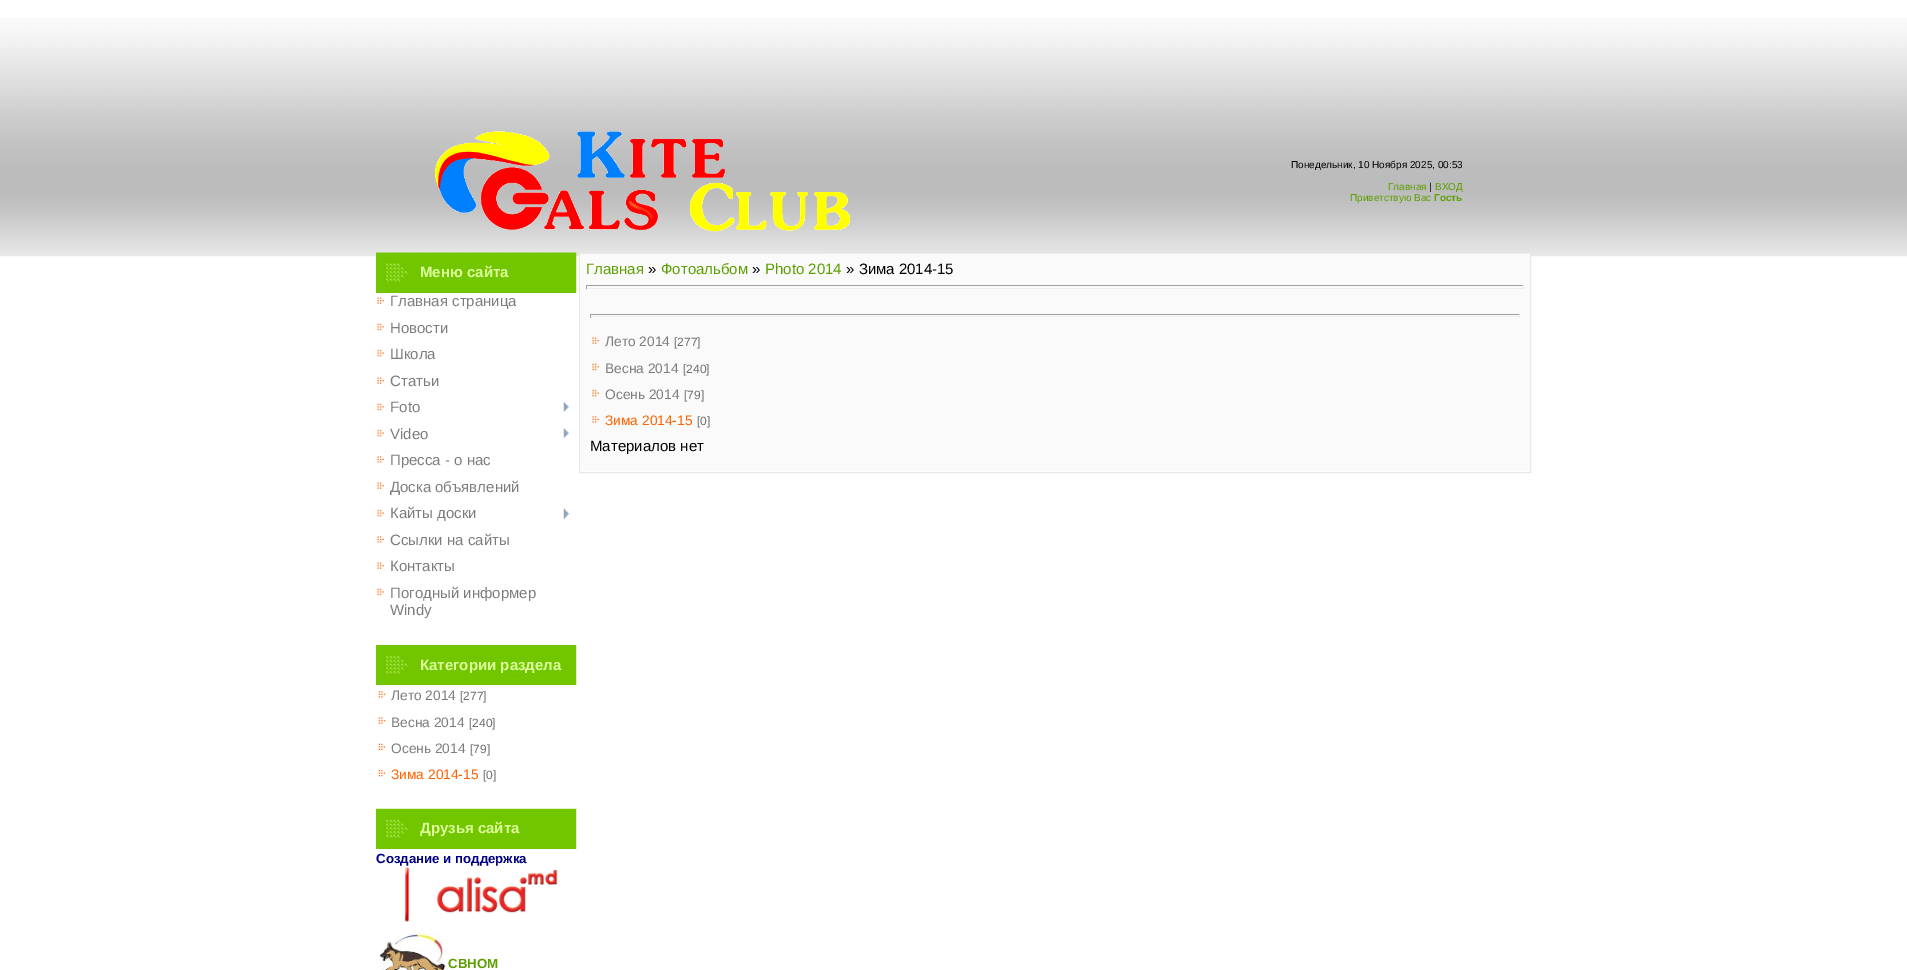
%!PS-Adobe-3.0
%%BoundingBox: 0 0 1907 970
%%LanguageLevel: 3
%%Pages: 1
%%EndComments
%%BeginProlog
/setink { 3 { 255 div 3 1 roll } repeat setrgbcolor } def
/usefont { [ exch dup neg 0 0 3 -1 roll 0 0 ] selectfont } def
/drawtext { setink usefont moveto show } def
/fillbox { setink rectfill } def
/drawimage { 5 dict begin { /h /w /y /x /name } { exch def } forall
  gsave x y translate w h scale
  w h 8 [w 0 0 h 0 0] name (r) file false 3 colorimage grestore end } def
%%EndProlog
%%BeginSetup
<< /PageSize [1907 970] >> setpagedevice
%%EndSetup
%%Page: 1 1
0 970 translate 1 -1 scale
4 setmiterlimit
0 0 1907 970 255 255 255 fillbox
(assets/img1.rgb) 0 18 1907 239 drawimage
(assets/img2.rgb) 435 131 415 101 drawimage
(Понедельник, 10 Ноября 2025, 00:53) 1291 168 /LiberationSans-Regular 10 0 0 0 drawtext
(|) 1429 190 /LiberationSans-Regular 10 0 0 0 drawtext
(ВХОД) 1435 190 /LiberationSans-Regular 10 92 159 0 drawtext
(Приветствую Вас) 1350 201 /LiberationSans-Regular 10 92 159 0 drawtext
(Гость) 1434 201 /LiberationSans-Bold 10 92 159 0 drawtext
(Главная) 1388 190 /LiberationSans-Regular 10 92 159 0 drawtext
376 253 200 40 114 198 0 fillbox
(assets/img3.rgb) 376 252 201 41 drawimage
(Меню сайта) 420 277 /LiberationSans-Bold 15 221 255 158 drawtext
(assets/img4.rgb) 377 297 7 7 drawimage
(Главная страница) 390 306 /LiberationSans-Regular 15 125 125 125 drawtext
(assets/img5.rgb) 377 323 7 8 drawimage
(Новости) 390 333 /LiberationSans-Regular 15 125 125 125 drawtext
(assets/img6.rgb) 377 349 7 8 drawimage
(Школа) 390 359 /LiberationSans-Regular 15 125 125 125 drawtext
(assets/img4.rgb) 377 377 7 7 drawimage
(Статьи) 390 386 /LiberationSans-Regular 15 125 125 125 drawtext
(assets/img5.rgb) 377 403 7 8 drawimage
(Foto) 390 412 /LiberationSans-Regular 15 125 125 125 drawtext
(assets/img7.rgb) 563 402 6 10 drawimage
(assets/img6.rgb) 377 429 7 8 drawimage
(Video) 390 439 /LiberationSans-Regular 15 125 125 125 drawtext
(assets/img8.rgb) 563 428 6 10 drawimage
(assets/img9.rgb) 377 456 7 7 drawimage
(Пресса - о нас) 390 465 /LiberationSans-Regular 15 125 125 125 drawtext
(assets/img4.rgb) 377 482 7 7 drawimage
(Доска объявлений) 390 492 /LiberationSans-Regular 15 125 125 125 drawtext
(assets/img6.rgb) 377 509 7 8 drawimage
(Кайты доски) 390 518 /LiberationSans-Regular 15 125 125 125 drawtext
(assets/img10.rgb) 563 508 6 11 drawimage
(assets/img9.rgb) 377 536 7 7 drawimage
(Ссылки на сайты) 390 545 /LiberationSans-Regular 15 125 125 125 drawtext
(assets/img4.rgb) 377 562 7 7 drawimage
(Контакты) 390 571 /LiberationSans-Regular 15 125 125 125 drawtext
(assets/img11.rgb) 377 588 7 8 drawimage
(Погодный информер) 390 598 /LiberationSans-Regular 15 125 125 125 drawtext
(Windy) 390 615 /LiberationSans-Regular 15 125 125 125 drawtext
376 645 10 40 114 198 0 fillbox
(assets/img12.rgb) 386 645 191 40 drawimage
(Категории раздела) 420 670 /LiberationSans-Bold 15 221 255 158 drawtext
(assets/img13.rgb) 378 691 8 7 drawimage
(Лето 2014) 391 700 /LiberationSans-Regular 13.75 125 125 125 drawtext
([277]) 460 700 /LiberationSans-Regular 12 110 110 110 drawtext
(assets/img14.rgb) 378 717 8 7 drawimage
(Весна 2014) 391 727 /LiberationSans-Regular 13.75 125 125 125 drawtext
([240]) 469 727 /LiberationSans-Regular 12 110 110 110 drawtext
(assets/img15.rgb) 378 743 8 8 drawimage
(Осень 2014) 391 753 /LiberationSans-Regular 13.75 125 125 125 drawtext
([79]) 470 753 /LiberationSans-Regular 12 110 110 110 drawtext
(assets/img16.rgb) 378 769 8 8 drawimage
(Зима 2014-15) 391 779 /LiberationSans-Regular 13.75 255 98 0 drawtext
([0]) 483 779 /LiberationSans-Regular 12 110 110 110 drawtext
376 809 200 40 114 198 0 fillbox
(assets/img17.rgb) 376 808 201 41 drawimage
(Друзья сайта) 420 833 /LiberationSans-Bold 15 221 255 158 drawtext
(Создание и поддержка) 376 863 /LiberationSans-Bold 13.25 0 0 128 drawtext
(assets/img18.rgb) 405 867 153 55 drawimage
(assets/img19.rgb) 376 932 72 38 drawimage
(СВНОМ) 448 968 /LiberationSans-Bold 13.25 92 159 0 drawtext
232 232 232 setink
579.5 253.5 951 219 rectstroke
580 254 950 217 250 250 250 fillbox
(assets/img20.rgb) 824 253 706 1 drawimage
(Главная) 586 274 /LiberationSans-Regular 15 92 159 0 drawtext
(») 648 274 /LiberationSans-Regular 15 0 0 0 drawtext
(Фотоальбом) 661 274 /LiberationSans-Regular 15 92 159 0 drawtext
(») 752 274 /LiberationSans-Regular 15 0 0 0 drawtext
(Photo 2014) 765 274 /LiberationSans-Regular 15 92 159 0 drawtext
(» Зима 2014-15) 846 274 /LiberationSans-Regular 15 0 0 0 drawtext
586 285 938 1 159 159 159 fillbox
1523 285 1 4 238 238 238 fillbox
586 288 938 1 238 238 238 fillbox
586 285 1 4 159 159 159 fillbox
590 314 930 1 159 159 159 fillbox
1519 314 1 4 238 238 238 fillbox
590 316 930 1 238 238 238 fillbox
590 314 1 4 159 159 159 fillbox
(assets/img21.rgb) 592 337 7 7 drawimage
(Лето 2014) 605 346 /LiberationSans-Regular 13.75 125 125 125 drawtext
([277]) 674 346 /LiberationSans-Regular 12 110 110 110 drawtext
(assets/img22.rgb) 592 363 7 8 drawimage
(Весна 2014) 605 373 /LiberationSans-Regular 13.75 125 125 125 drawtext
([240]) 683 373 /LiberationSans-Regular 12 110 110 110 drawtext
(assets/img23.rgb) 592 389 7 8 drawimage
(Осень 2014) 605 399 /LiberationSans-Regular 13.75 125 125 125 drawtext
([79]) 684 399 /LiberationSans-Regular 12 110 110 110 drawtext
(assets/img24.rgb) 592 416 7 7 drawimage
(Зима 2014-15) 605 425 /LiberationSans-Regular 13.75 255 98 0 drawtext
([0]) 697 425 /LiberationSans-Regular 12 110 110 110 drawtext
(Материалов нет) 590 451 /LiberationSans-Regular 15 0 0 0 drawtext
showpage
%%EOF
